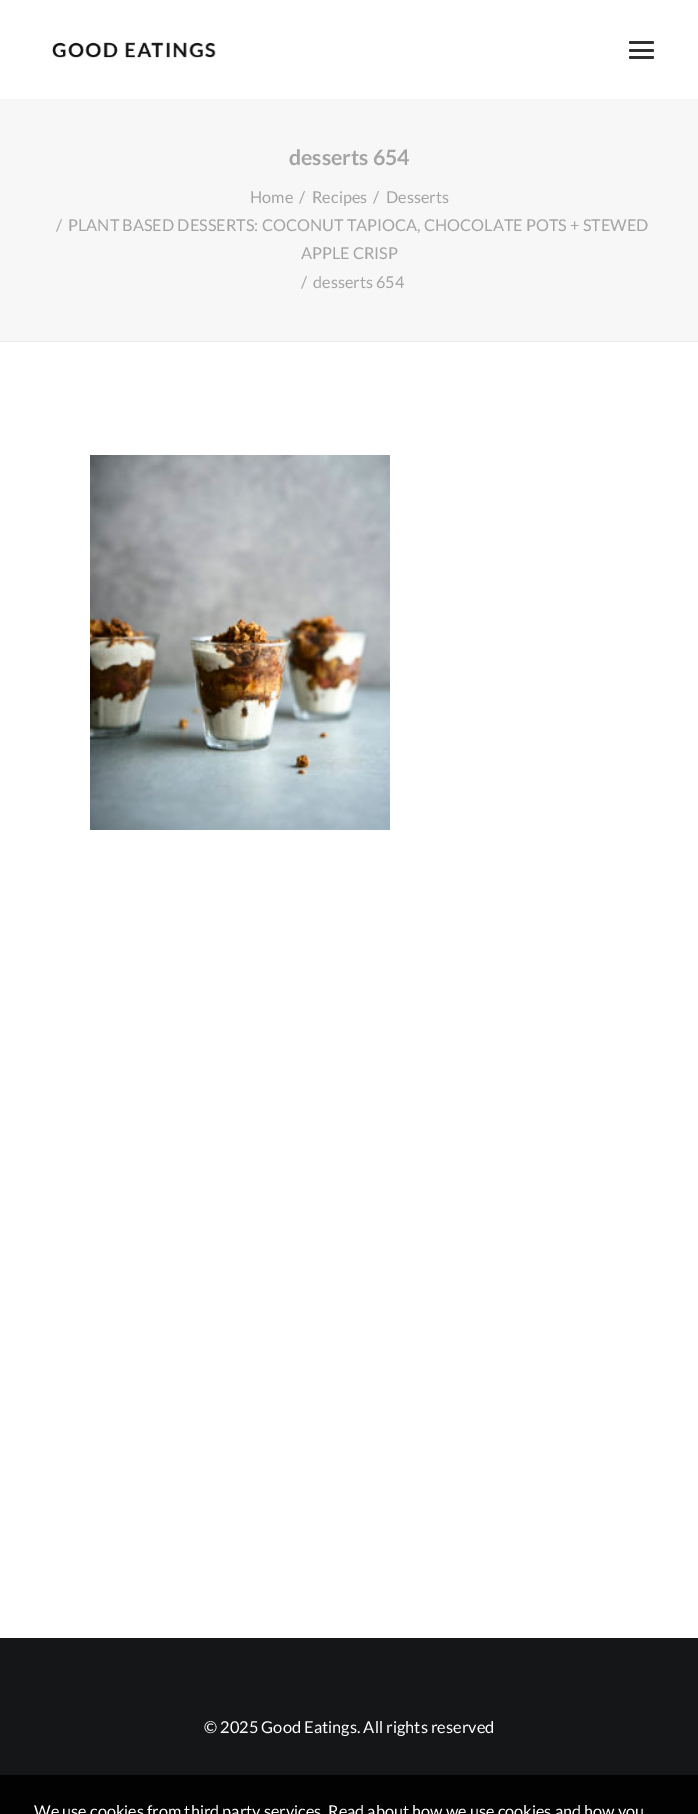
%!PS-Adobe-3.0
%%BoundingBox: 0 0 698 1814
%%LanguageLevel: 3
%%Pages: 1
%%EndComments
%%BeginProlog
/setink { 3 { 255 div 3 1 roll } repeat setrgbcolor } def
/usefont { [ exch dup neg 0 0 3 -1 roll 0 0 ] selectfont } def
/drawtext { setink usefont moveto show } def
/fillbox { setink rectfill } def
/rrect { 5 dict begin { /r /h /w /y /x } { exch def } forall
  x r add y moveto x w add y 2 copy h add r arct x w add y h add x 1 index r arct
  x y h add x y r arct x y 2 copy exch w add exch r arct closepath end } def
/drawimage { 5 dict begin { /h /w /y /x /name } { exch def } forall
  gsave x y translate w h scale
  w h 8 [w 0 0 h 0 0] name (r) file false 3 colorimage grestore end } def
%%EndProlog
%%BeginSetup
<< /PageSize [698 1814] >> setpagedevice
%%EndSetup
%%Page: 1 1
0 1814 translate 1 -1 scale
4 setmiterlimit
0 0 698 1814 255 255 255 fillbox
(assets/img1.rgb) 52 42 164 16 drawimage
48 49 51 setink
629 49 25 3 1.5 rrect fill
629 41 25 3 1.5 rrect fill
629 56 25 3 1.5 rrect fill
0 99 698 242 247 247 247 fillbox
0 341 698 1 234 234 234 fillbox
(desserts 654) 289 165 /Lato-Bold 21.25 164 164 164 drawtext
(Home) 250 203 /Lato-Regular 16.25 164 164 164 drawtext
(/) 299 203 /Lato-Regular 16.25 164 164 164 drawtext
(Recipes) 312 203 /Lato-Regular 16.25 164 164 164 drawtext
(/) 373 203 /Lato-Regular 16.25 164 164 164 drawtext
(Desserts) 386 203 /Lato-Regular 16.25 164 164 164 drawtext
(/) 56 231 /Lato-Regular 16.25 164 164 164 drawtext
(PLANT BASED DESSERTS: COCONUT TAPIOCA, CHOCOLATE POTS + STEWED) 68 231 /Lato-Regular 16.25 164 164 164 drawtext
(APPLE CRISP) 301 259 /Lato-Regular 16.25 164 164 164 drawtext
(/) 301 288 /Lato-Regular 16.25 164 164 164 drawtext
(desserts 654) 313 288 /Lato-Regular 16.25 164 164 164 drawtext
(assets/img2.rgb) 90 455 300 375 drawimage
0 1638 698 137 20 22 24 fillbox
(© 2025 Good Eatings. All rights reserved) 204 1733 /Lato-Regular 16.4 255 255 255 drawtext
0 1775 698 39 2 2 2 fillbox
(We use cookies from third party services. Read about how we use cookies and how you) 34 1817 /Lato-Regular 16.25 255 255 255 drawtext
showpage
%%EOF
